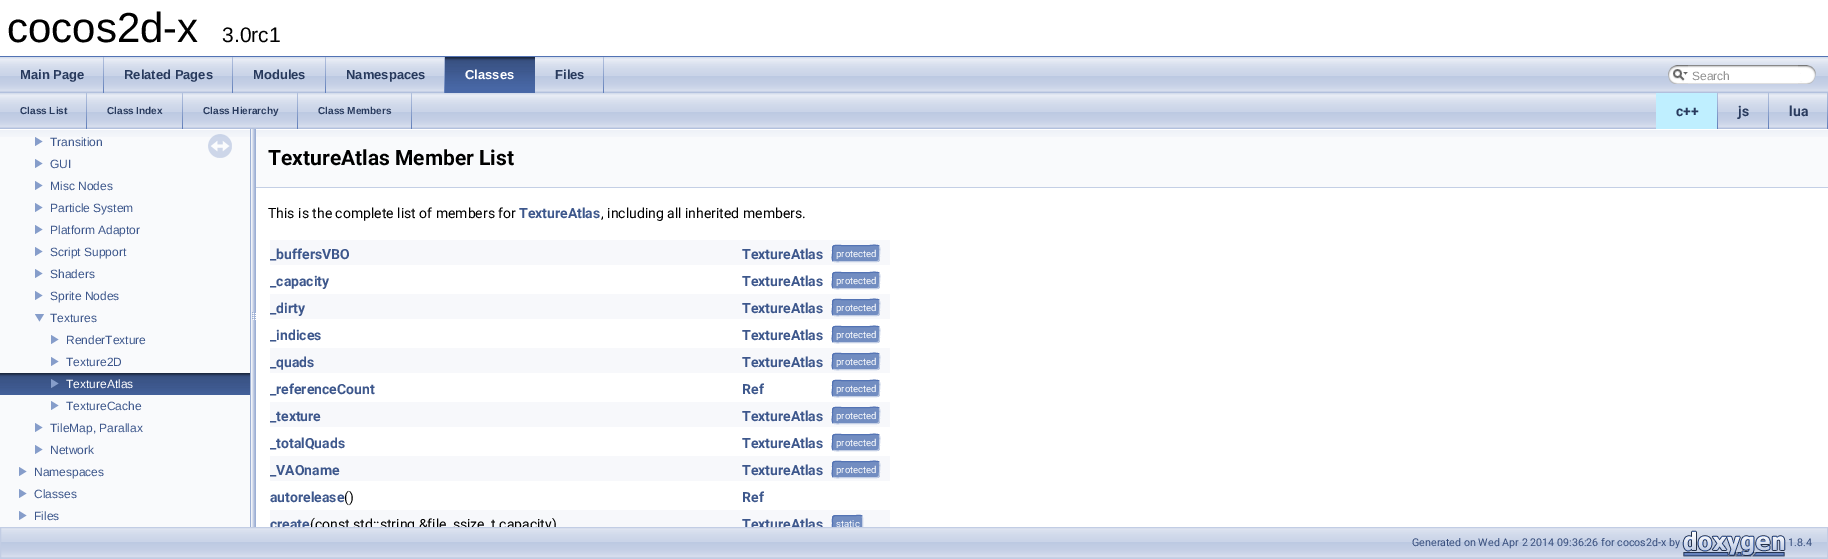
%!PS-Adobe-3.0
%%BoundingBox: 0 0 1828 559
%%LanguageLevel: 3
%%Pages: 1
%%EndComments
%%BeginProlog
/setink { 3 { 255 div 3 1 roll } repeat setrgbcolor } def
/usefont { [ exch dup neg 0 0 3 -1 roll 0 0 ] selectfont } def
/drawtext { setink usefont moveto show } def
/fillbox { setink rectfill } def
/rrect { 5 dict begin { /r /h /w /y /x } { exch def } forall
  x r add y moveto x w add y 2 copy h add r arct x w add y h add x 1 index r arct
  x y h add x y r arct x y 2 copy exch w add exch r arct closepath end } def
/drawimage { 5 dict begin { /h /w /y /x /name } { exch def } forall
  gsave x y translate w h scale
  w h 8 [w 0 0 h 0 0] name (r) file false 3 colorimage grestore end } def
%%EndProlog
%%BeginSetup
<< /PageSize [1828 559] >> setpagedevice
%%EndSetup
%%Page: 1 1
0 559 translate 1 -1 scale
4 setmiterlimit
0 0 1828 559 255 255 255 fillbox
0 56 1828 1 83 115 180 fillbox
(cocos2d-x) 7 42 /LiberationSans-Regular 42 0 0 0 drawtext
(3.0rc1) 222 42 /LiberationSans-Regular 21 0 0 0 drawtext
(assets/img1.rgb) 0 57 1828 36 drawimage
(assets/img2.rgb) 103 57 1 36 drawimage
(Main Page) 20 79 /LiberationSans-Bold 13 40 58 93 drawtext
(assets/img2.rgb) 232 57 1 36 drawimage
(Related Pages) 124 79 /LiberationSans-Bold 13 40 58 93 drawtext
(assets/img2.rgb) 325 57 1 36 drawimage
(Modules) 253 79 /LiberationSans-Bold 13 40 58 93 drawtext
(assets/img2.rgb) 444 57 1 36 drawimage
(Namespaces) 346 79 /LiberationSans-Bold 13 40 58 93 drawtext
(assets/img3.rgb) 445 57 90 36 drawimage
(Classes) 465 79 /LiberationSans-Bold 13 255 255 255 drawtext
(assets/img2.rgb) 603 57 1 36 drawimage
(Files) 555 79 /LiberationSans-Bold 13 40 58 93 drawtext
(assets/img4.rgb) 1668 65 20 19 drawimage
(assets/img5.rgb) 1673 69 15 12 drawimage
(assets/img6.rgb) 1688 65 110 19 drawimage
(Search) 1692 80 /LiberationSans-Regular 12 144 144 144 drawtext
(assets/img7.rgb) 1798 65 18 19 drawimage
(assets/img8.rgb) 0 93 1827 36 drawimage
(assets/img2.rgb) 86 93 1 36 drawimage
(Class List) 20 114 /LiberationSans-Bold 10 40 58 93 drawtext
(assets/img2.rgb) 182 93 1 36 drawimage
(Class Index) 107 114 /LiberationSans-Bold 10 40 58 93 drawtext
(assets/img2.rgb) 297 93 1 36 drawimage
(Class Hierarchy) 203 114 /LiberationSans-Bold 10 40 58 93 drawtext
(assets/img2.rgb) 411 93 1 36 drawimage
(Class Members) 318 114 /LiberationSans-Bold 10 40 58 93 drawtext
1656 93 61 36 191 239 255 fillbox
(assets/img2.rgb) 1717 93 1 36 drawimage
(c++) 1676 116 /Roboto-Bold 14 40 58 93 drawtext
(assets/img2.rgb) 1768 93 1 36 drawimage
(js) 1738 116 /Roboto-Bold 14 40 58 93 drawtext
(assets/img2.rgb) 1827 93 1 36 drawimage
(lua) 1789 116 /Roboto-Bold 14 40 58 93 drawtext
0 137 250 390 249 250 252 fillbox
(assets/img9.rgb) 0 129 250 8 drawimage
(assets/img10.rgb) 35 137 8 9 drawimage
(Transition) 50 146 /LiberationSans-Regular 12 61 87 140 drawtext
(assets/img10.rgb) 35 159 8 9 drawimage
(GUI) 50 168 /LiberationSans-Regular 12 61 87 140 drawtext
(assets/img10.rgb) 35 181 8 9 drawimage
(Misc Nodes) 50 190 /LiberationSans-Regular 12 61 87 140 drawtext
(assets/img10.rgb) 35 203 8 9 drawimage
(Particle System) 50 212 /LiberationSans-Regular 12 61 87 140 drawtext
(assets/img10.rgb) 35 225 8 9 drawimage
(Platform Adaptor) 50 234 /LiberationSans-Regular 12 61 87 140 drawtext
(assets/img10.rgb) 35 247 8 9 drawimage
(Script Support) 50 256 /LiberationSans-Regular 12 61 87 140 drawtext
(assets/img10.rgb) 35 269 8 9 drawimage
(Shaders) 50 278 /LiberationSans-Regular 12 61 87 140 drawtext
(assets/img10.rgb) 35 291 8 9 drawimage
(Sprite Nodes) 50 300 /LiberationSans-Regular 12 61 87 140 drawtext
(assets/img11.rgb) 35 314 9 8 drawimage
(Textures) 50 322 /LiberationSans-Regular 12 61 87 140 drawtext
(assets/img10.rgb) 51 335 8 9 drawimage
(RenderTexture) 66 344 /LiberationSans-Regular 12 61 87 140 drawtext
(assets/img10.rgb) 51 357 8 9 drawimage
(Texture2D) 66 366 /LiberationSans-Regular 12 61 87 140 drawtext
(assets/img12.rgb) 0 373 250 22 drawimage
(assets/img13.rgb) 51 379 8 9 drawimage
(TextureAtlas) 66 388 /LiberationSans-Regular 12 255 255 255 drawtext
(assets/img10.rgb) 51 401 8 9 drawimage
(TextureCache) 66 410 /LiberationSans-Regular 12 61 87 140 drawtext
(assets/img10.rgb) 35 423 8 9 drawimage
(TileMap, Parallax) 50 432 /LiberationSans-Regular 12 61 87 140 drawtext
(assets/img10.rgb) 35 445 8 9 drawimage
(Network) 50 454 /LiberationSans-Regular 12 61 87 140 drawtext
(assets/img10.rgb) 19 467 8 9 drawimage
(Namespaces) 34 476 /LiberationSans-Regular 12 61 87 140 drawtext
(assets/img10.rgb) 19 489 8 9 drawimage
(Classes) 34 498 /LiberationSans-Regular 12 61 87 140 drawtext
(assets/img10.rgb) 19 511 8 9 drawimage
(Files) 34 520 /LiberationSans-Regular 12 61 87 140 drawtext
(assets/img14.rgb) 208 134 24 24 drawimage
(assets/img15.rgb) 250 129 6 398 drawimage
256 137 1572 50 249 250 252 fillbox
(assets/img16.rgb) 256 129 1572 8 drawimage
256 187 1572 1 196 207 229 fillbox
(TextureAtlas Member List) 268 165 /Roboto-Bold 21 0 0 0 drawtext
(This is the complete list of members for) 268 218 /Roboto-Regular 14 0 0 0 drawtext
(TextureAtlas) 519 218 /Roboto-Bold 14 61 87 140 drawtext
(, including all inherited members.) 601 218 /Roboto-Regular 14 0 0 0 drawtext
270 240 620 25 247 248 251 fillbox
(_buffersVBO) 270 259 /Roboto-Bold 14 61 87 140 drawtext
(TextureAtlas) 742 259 /Roboto-Bold 14 61 87 140 drawtext
114 141 193 setink
832 245 48 17 3 rrect fill
196 207 229 setink
879 246 moveto 880.5 248 879.5 251.5 879.5 253.5 curveto 879.5 263 880 261.5 870 261.5 curveto 842 261.5 lineto 842 261.5 835 262.5 833 261 curveto stroke
83 115 180 setink
833 261 moveto 831.5 259 832.5 255.5 832.5 253.5 curveto 832.5 244 832 245.5 842 245.5 curveto 870 245.5 lineto 870 245.5 877 244.5 879 246 curveto stroke
(protected) 836 257 /Roboto-Regular 9.5 255 255 255 drawtext
(_capacity) 270 286 /Roboto-Bold 14 61 87 140 drawtext
(TextureAtlas) 742 286 /Roboto-Bold 14 61 87 140 drawtext
114 141 193 setink
832 272 48 17 3 rrect fill
196 207 229 setink
879 273 moveto 880.5 275 879.5 278.5 879.5 280.5 curveto 879.5 290 880 288.5 870 288.5 curveto 842 288.5 lineto 842 288.5 835 289.5 833 288 curveto stroke
83 115 180 setink
833 288 moveto 831.5 286 832.5 282.5 832.5 280.5 curveto 832.5 271 832 272.5 842 272.5 curveto 870 272.5 lineto 870 272.5 877 271.5 879 273 curveto stroke
(protected) 836 284 /Roboto-Regular 9.5 255 255 255 drawtext
270 294 620 25 247 248 251 fillbox
(_dirty) 270 313 /Roboto-Bold 14 61 87 140 drawtext
(TextureAtlas) 742 313 /Roboto-Bold 14 61 87 140 drawtext
114 141 193 setink
832 299 48 17 3 rrect fill
196 207 229 setink
879 300 moveto 880.5 302 879.5 305.5 879.5 307.5 curveto 879.5 317 880 315.5 870 315.5 curveto 842 315.5 lineto 842 315.5 835 316.5 833 315 curveto stroke
83 115 180 setink
833 315 moveto 831.5 313 832.5 309.5 832.5 307.5 curveto 832.5 298 832 299.5 842 299.5 curveto 870 299.5 lineto 870 299.5 877 298.5 879 300 curveto stroke
(protected) 836 311 /Roboto-Regular 9.5 255 255 255 drawtext
(_indices) 270 340 /Roboto-Bold 14 61 87 140 drawtext
(TextureAtlas) 742 340 /Roboto-Bold 14 61 87 140 drawtext
114 141 193 setink
832 326 48 17 3 rrect fill
196 207 229 setink
879 327 moveto 880.5 329 879.5 332.5 879.5 334.5 curveto 879.5 344 880 342.5 870 342.5 curveto 842 342.5 lineto 842 342.5 835 343.5 833 342 curveto stroke
83 115 180 setink
833 342 moveto 831.5 340 832.5 336.5 832.5 334.5 curveto 832.5 325 832 326.5 842 326.5 curveto 870 326.5 lineto 870 326.5 877 325.5 879 327 curveto stroke
(protected) 836 338 /Roboto-Regular 9.5 255 255 255 drawtext
270 348 620 25 247 248 251 fillbox
(_quads) 270 367 /Roboto-Bold 14 61 87 140 drawtext
(TextureAtlas) 742 367 /Roboto-Bold 14 61 87 140 drawtext
114 141 193 setink
832 353 48 17 3 rrect fill
196 207 229 setink
879 354 moveto 880.5 356 879.5 359.5 879.5 361.5 curveto 879.5 371 880 369.5 870 369.5 curveto 842 369.5 lineto 842 369.5 835 370.5 833 369 curveto stroke
83 115 180 setink
833 369 moveto 831.5 367 832.5 363.5 832.5 361.5 curveto 832.5 352 832 353.5 842 353.5 curveto 870 353.5 lineto 870 353.5 877 352.5 879 354 curveto stroke
(protected) 836 365 /Roboto-Regular 9.5 255 255 255 drawtext
(_referenceCount) 270 394 /Roboto-Bold 14 61 87 140 drawtext
(Ref) 742 394 /Roboto-Bold 14 61 87 140 drawtext
114 141 193 setink
832 380 48 17 3 rrect fill
196 207 229 setink
879 381 moveto 880.5 383 879.5 386.5 879.5 388.5 curveto 879.5 398 880 396.5 870 396.5 curveto 842 396.5 lineto 842 396.5 835 397.5 833 396 curveto stroke
83 115 180 setink
833 396 moveto 831.5 394 832.5 390.5 832.5 388.5 curveto 832.5 379 832 380.5 842 380.5 curveto 870 380.5 lineto 870 380.5 877 379.5 879 381 curveto stroke
(protected) 836 392 /Roboto-Regular 9.5 255 255 255 drawtext
270 402 620 25 247 248 251 fillbox
(_texture) 270 421 /Roboto-Bold 14 61 87 140 drawtext
(TextureAtlas) 742 421 /Roboto-Bold 14 61 87 140 drawtext
114 141 193 setink
832 407 48 17 3 rrect fill
196 207 229 setink
879 408 moveto 880.5 410 879.5 413.5 879.5 415.5 curveto 879.5 425 880 423.5 870 423.5 curveto 842 423.5 lineto 842 423.5 835 424.5 833 423 curveto stroke
83 115 180 setink
833 423 moveto 831.5 421 832.5 417.5 832.5 415.5 curveto 832.5 406 832 407.5 842 407.5 curveto 870 407.5 lineto 870 407.5 877 406.5 879 408 curveto stroke
(protected) 836 419 /Roboto-Regular 9.5 255 255 255 drawtext
(_totalQuads) 270 448 /Roboto-Bold 14 61 87 140 drawtext
(TextureAtlas) 742 448 /Roboto-Bold 14 61 87 140 drawtext
114 141 193 setink
832 434 48 17 3 rrect fill
196 207 229 setink
879 435 moveto 880.5 437 879.5 440.5 879.5 442.5 curveto 879.5 452 880 450.5 870 450.5 curveto 842 450.5 lineto 842 450.5 835 451.5 833 450 curveto stroke
83 115 180 setink
833 450 moveto 831.5 448 832.5 444.5 832.5 442.5 curveto 832.5 433 832 434.5 842 434.5 curveto 870 434.5 lineto 870 434.5 877 433.5 879 435 curveto stroke
(protected) 836 446 /Roboto-Regular 9.5 255 255 255 drawtext
270 456 620 25 247 248 251 fillbox
(_VAOname) 270 475 /Roboto-Bold 14 61 87 140 drawtext
(TextureAtlas) 742 475 /Roboto-Bold 14 61 87 140 drawtext
114 141 193 setink
832 461 48 17 3 rrect fill
196 207 229 setink
879 462 moveto 880.5 464 879.5 467.5 879.5 469.5 curveto 879.5 479 880 477.5 870 477.5 curveto 842 477.5 lineto 842 477.5 835 478.5 833 477 curveto stroke
83 115 180 setink
833 477 moveto 831.5 475 832.5 471.5 832.5 469.5 curveto 832.5 460 832 461.5 842 461.5 curveto 870 461.5 lineto 870 461.5 877 460.5 879 462 curveto stroke
(protected) 836 473 /Roboto-Regular 9.5 255 255 255 drawtext
(autorelease) 270 502 /Roboto-Bold 14 61 87 140 drawtext
(\(\)) 344 502 /Roboto-Regular 14 0 0 0 drawtext
(Ref) 742 502 /Roboto-Bold 14 61 87 140 drawtext
270 510 620 17 247 248 251 fillbox
(create) 270 529 /Roboto-Bold 14 61 87 140 drawtext
(\(const std::string &file, ssize_t capacity\)) 310 529 /Roboto-Regular 14 0 0 0 drawtext
(TextureAtlas) 742 529 /Roboto-Bold 14 61 87 140 drawtext
114 141 193 setink
835 515 moveto 860 515 lineto 861.5 515 863 516.5 863 518 curveto 863 527 lineto 832 527 lineto 832 518 lineto 832 516.5 833.5 515 835 515 curveto closepath fill
196 207 229 setink
862 516 moveto 863 517.5 862.5 522 862.5 523.5 curveto 862.5 531 863.5 531.5 856 531.5 curveto 839 531.5 lineto 838 531.5 834.5 532 833 531 curveto stroke
83 115 180 setink
833 531 moveto 832 529.5 832.5 525 832.5 523.5 curveto 832.5 516 831.5 515.5 839 515.5 curveto 856 515.5 lineto 857 515.5 860.5 515 862 516 curveto stroke
(static) 836 527 /Roboto-Regular 9.5 255 255 255 drawtext
(assets/img17.rgb) 1 528 1826 30 drawimage
194 205 228 setink
0.5 527.5 1827 31 rectstroke
(Generated on Wed Apr 2 2014 09:36:26 for cocos2d-x by) 1412 546 /Roboto-Regular 10.7 54 77 124 drawtext
(assets/img18.rgb) 1682 530 104 27 drawimage
(1.8.4) 1788 546 /Roboto-Regular 10.7 54 77 124 drawtext
showpage
%%EOF
